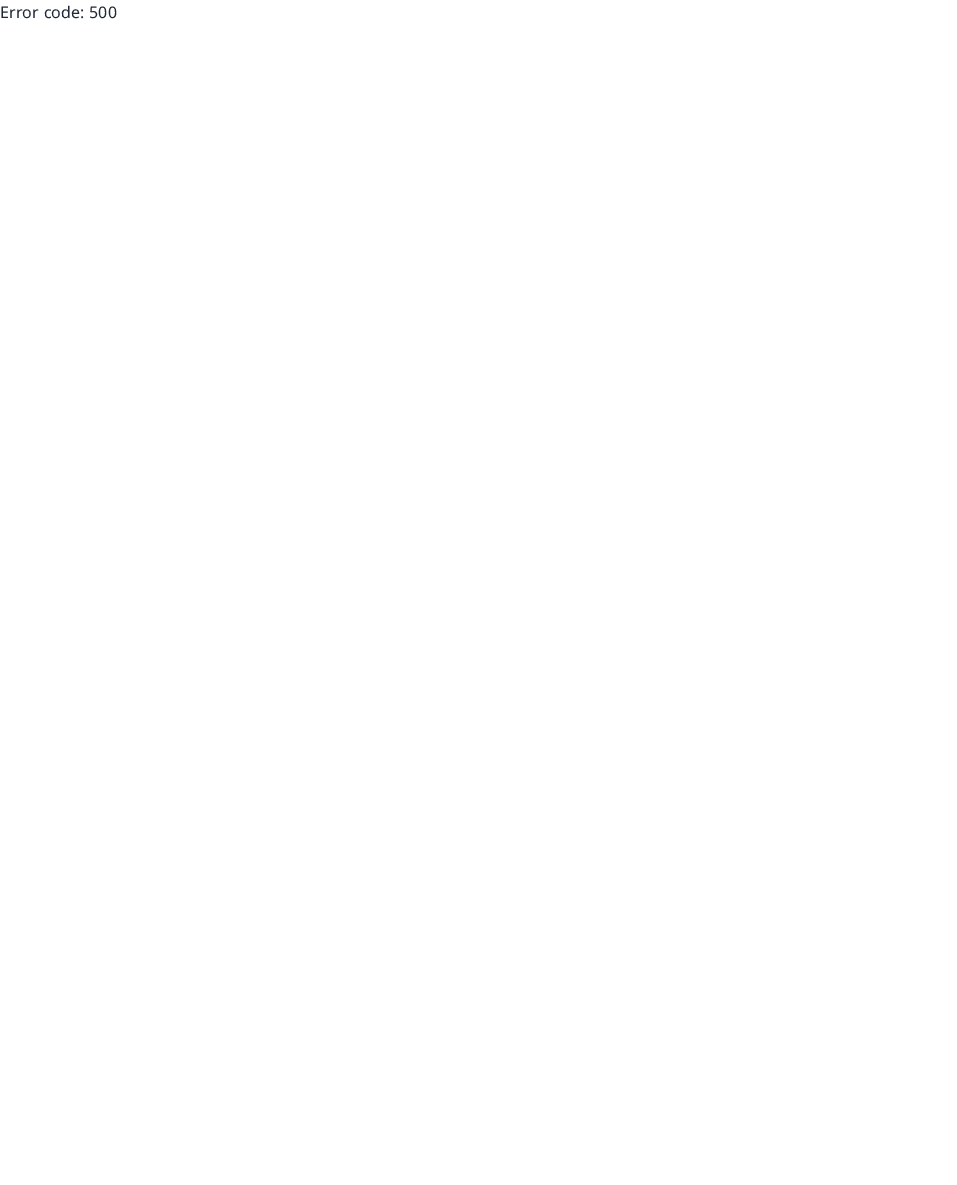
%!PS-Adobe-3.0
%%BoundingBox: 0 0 957 1185
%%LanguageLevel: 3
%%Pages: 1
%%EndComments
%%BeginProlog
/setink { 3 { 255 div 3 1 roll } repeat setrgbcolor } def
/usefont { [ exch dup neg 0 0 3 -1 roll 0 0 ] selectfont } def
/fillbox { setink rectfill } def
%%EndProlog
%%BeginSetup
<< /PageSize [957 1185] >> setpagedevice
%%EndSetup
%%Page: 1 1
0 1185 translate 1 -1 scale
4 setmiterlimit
0 0 957 1185 255 255 255 fillbox
/NotoSans-Regular 16 usefont
31 41 55 setink
0 18 moveto 1 0 32 (Error code: 500) widthshow
showpage
%%EOF
